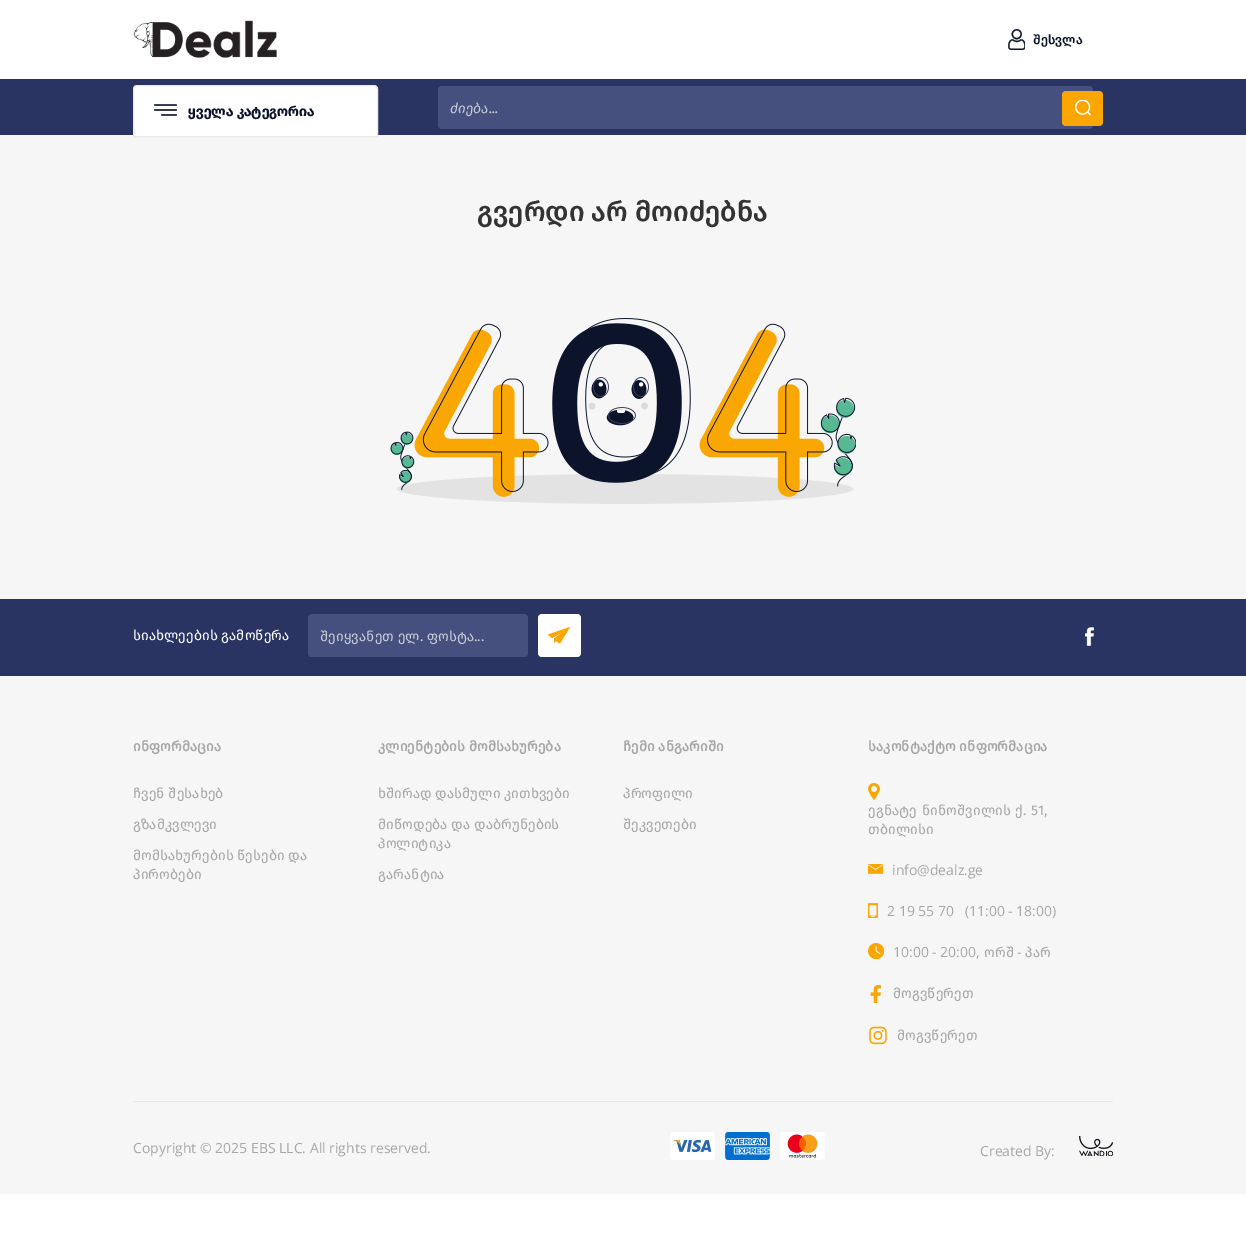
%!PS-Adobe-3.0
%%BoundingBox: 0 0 1246 1255
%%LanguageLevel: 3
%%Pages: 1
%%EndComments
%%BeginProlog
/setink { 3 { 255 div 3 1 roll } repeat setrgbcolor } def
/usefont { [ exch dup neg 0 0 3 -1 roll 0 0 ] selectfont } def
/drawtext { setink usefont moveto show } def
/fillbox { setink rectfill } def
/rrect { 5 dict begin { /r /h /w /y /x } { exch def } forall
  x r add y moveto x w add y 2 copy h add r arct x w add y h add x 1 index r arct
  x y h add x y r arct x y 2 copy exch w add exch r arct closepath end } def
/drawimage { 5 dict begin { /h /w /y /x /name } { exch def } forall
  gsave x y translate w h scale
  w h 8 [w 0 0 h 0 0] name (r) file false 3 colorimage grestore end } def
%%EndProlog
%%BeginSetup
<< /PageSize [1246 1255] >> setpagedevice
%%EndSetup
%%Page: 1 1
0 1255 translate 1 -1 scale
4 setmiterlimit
0 0 1246 1255 255 255 255 fillbox
0 135 1246 1059 246 246 246 fillbox
(assets/img1.rgb) 133 20 144 38 drawimage
(assets/img2.rgb) 1008 29 17 21 drawimage
(შესვლა) 1033 44 /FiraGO-Medium 13 12 20 44 drawtext
0 79 1246 56 41 52 98 fillbox
255 255 255 setink
137 85.5 moveto 374 85.5 lineto 376 85.5 377.5 87 377.5 89 curveto 377.5 136.5 lineto 133.5 136.5 lineto 133.5 89 lineto 133.5 87 135 85.5 137 85.5 curveto closepath gsave fill grestore
233 233 233 setink
stroke
(assets/img3.rgb) 154 104 23 12 drawimage
(ყველა კატეგორია) 188 116 /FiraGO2-Bold 14 12 20 44 drawtext
69 80 126 setink
438 86 655 43 4 rrect fill
(ძიება...) 450 113 /FiraGO-Italic 14 199 203 216 drawtext
251 166 3 setink
1062 91 41 35 4 rrect fill
(assets/img4.rgb) 1075 100 16 16 drawimage
(გვერდი არ მოიძებნა) 477 221 /FiraGO-Medium 28 51 51 51 drawtext
(assets/img5.rgb) 390 318 466 186 drawimage
0 599 1246 77 41 52 98 fillbox
(სიახლეების გამოწერა) 133 640 /FiraGO-Regular 14 255 255 255 drawtext
69 80 126 setink
308 614 220 43 4 rrect fill
(შეიყვანეთ ელ. ფოსტა...) 320 641 /FiraGO-Regular 14 199 203 216 drawtext
255 255 255 setink
538 614 43 43 4 rrect fill
251 166 3 setink
564.5 631 moveto 552 638 lineto 548 634.5 lineto 570 627 lineto 560 643.5 lineto 556 641 lineto 554 643 lineto 554 638.5 lineto closepath fill
(assets/img6.rgb) 1085 627 9 19 drawimage
(ინფორმაცია) 133 751 /FiraGO-Bold 14 167 167 167 drawtext
(ჩვენ შესახებ) 133 798 /FiraGO-Regular 14 167 167 167 drawtext
(გზამკვლევი) 133 829 /FiraGO-Regular 14 167 167 167 drawtext
(მომსახურების წესები და) 133 860 /FiraGO-Regular 14 167 167 167 drawtext
(პირობები) 133 879 /FiraGO-Regular 14 167 167 167 drawtext
(კლიენტების მომსახურება) 378 751 /FiraGO-Bold 14 167 167 167 drawtext
(ხშირად დასმული კითხვები) 378 798 /FiraGO-Regular 14 167 167 167 drawtext
(მიწოდება და დაბრუნების) 378 829 /FiraGO-Regular 14 167 167 167 drawtext
(პოლიტიკა) 378 848 /FiraGO-Regular 14 167 167 167 drawtext
(გარანტია) 378 879 /FiraGO-Regular 14 167 167 167 drawtext
(ჩემი ანგარიში) 623 751 /FiraGO-Bold 14 167 167 167 drawtext
(პროფილი) 623 798 /FiraGO-Regular 14 167 167 167 drawtext
(შეკვეთები) 623 829 /FiraGO-Regular 14 167 167 167 drawtext
(საკონტაქტო ინფორმაცია) 868 751 /FiraGO-Bold 14 167 167 167 drawtext
(assets/img7.rgb) 868 783 12 17 drawimage
/FiraGO-Regular 14 usefont
868 815 moveto 1 0 32 (ეგნატე ნინოშვილის ქ. 51,) widthshow
(თბილისი) 868 834 /FiraGO-Regular 14 167 167 167 drawtext
(assets/img8.rgb) 868 864 15 10 drawimage
(info@dealz.ge) 892 875 /OpenSans-Regular 14 167 167 167 drawtext
(assets/img9.rgb) 868 903 10 15 drawimage
(2 19 55 70   \(11:00 - 18:00\)) 887 916 /OpenSans-Regular 14 167 167 167 drawtext
(assets/img10.rgb) 868 943 16 16 drawimage
(10:00 - 20:00,) 893 957 /OpenSans-Regular 14 167 167 167 drawtext
(ორშ) 984 957 /FiraGO-Regular 14 167 167 167 drawtext
(-) 1017 957 /OpenSans-Regular 14 167 167 167 drawtext
(პარ) 1025 957 /FiraGO-Regular 14 167 167 167 drawtext
(assets/img11.rgb) 870 985 11 18 drawimage
(მოგვწერეთ) 893 998 /FiraGO-Regular 14 167 167 167 drawtext
(assets/img12.rgb) 869 1026 18 19 drawimage
(მოგვწერეთ) 897 1040 /FiraGO-Regular 14 167 167 167 drawtext
133 1101 980 1 233 233 233 fillbox
(Copyright © 2025 EBS LLC. All rights reserved.) 133 1153 /OpenSans-Regular 14 167 167 167 drawtext
(assets/img13.rgb) 670 1132 45 28 drawimage
(assets/img14.rgb) 725 1132 45 28 drawimage
(assets/img15.rgb) 780 1132 45 28 drawimage
(Created By:) 980 1156 /OpenSans-Regular 14 167 167 167 drawtext
(assets/img16.rgb) 1079 1136 34 20 drawimage
showpage
%%EOF
